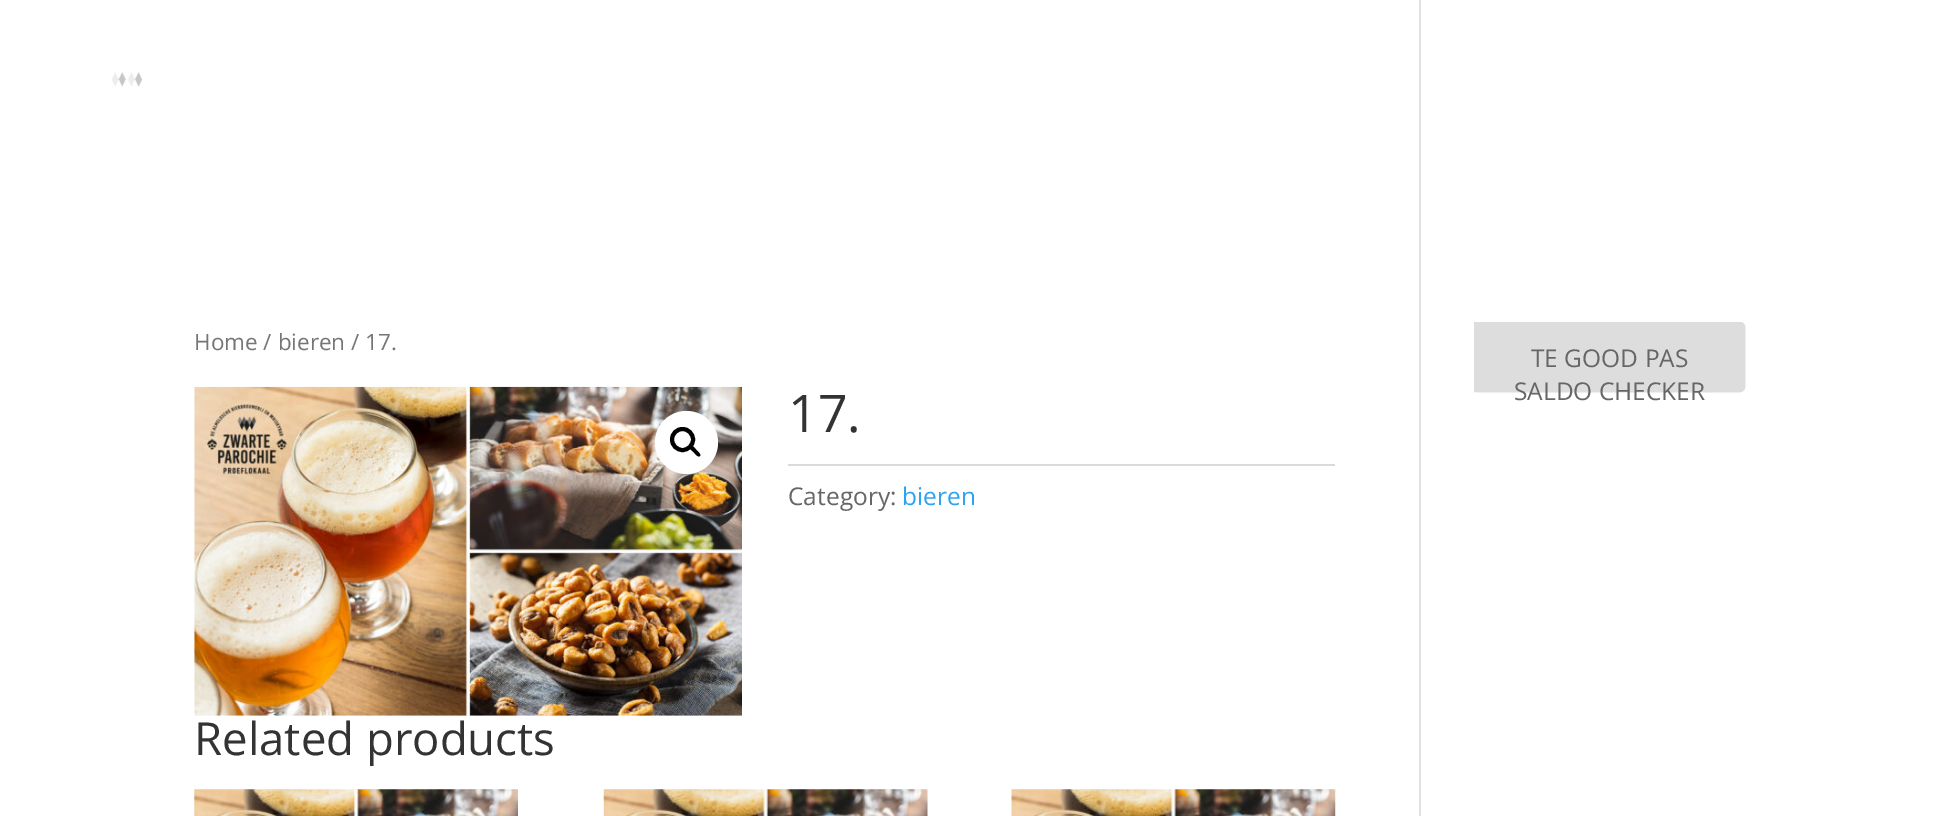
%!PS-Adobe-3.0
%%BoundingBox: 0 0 1939 816
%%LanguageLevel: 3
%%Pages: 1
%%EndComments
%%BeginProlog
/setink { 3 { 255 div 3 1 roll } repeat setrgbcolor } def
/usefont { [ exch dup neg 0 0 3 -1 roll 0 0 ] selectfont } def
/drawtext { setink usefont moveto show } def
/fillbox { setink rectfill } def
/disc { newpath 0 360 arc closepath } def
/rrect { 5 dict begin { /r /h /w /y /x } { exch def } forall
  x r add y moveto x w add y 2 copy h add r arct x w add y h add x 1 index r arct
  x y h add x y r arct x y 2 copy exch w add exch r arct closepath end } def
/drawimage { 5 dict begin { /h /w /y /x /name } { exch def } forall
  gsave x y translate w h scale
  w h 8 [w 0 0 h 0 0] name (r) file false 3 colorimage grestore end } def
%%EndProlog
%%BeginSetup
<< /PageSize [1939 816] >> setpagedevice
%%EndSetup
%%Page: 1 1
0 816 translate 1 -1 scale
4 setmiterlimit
0 0 1939 816 255 255 255 fillbox
(assets/img1.rgb) 111 72 32 15 drawimage
1419 0 2 816 226 226 226 fillbox
(Home / bieren / 17.) 194 350 /OpenSans-Regular 22.5 118 118 118 drawtext
(assets/img2.rgb) 194 386 548 330 drawimage
255 255 255 setink
686.5 442.5 31.5 disc fill
0 0 0 setink
4 setlinewidth
682.5 439.5 10.5 disc stroke
690 446 moveto 692 444 695 448.5 696 449.5 curveto 697 451 701.5 454 700 456 curveto 698 458 694.5 453 693.5 452 curveto 692.5 451 688 448 690 446 curveto closepath fill
(17.) 788 432 /OpenSans-Regular 52 51 51 51 drawtext
788 464 547 2 218 218 218 fillbox
(Category:) 788 505 /OpenSans-Regular 24.5 102 102 102 drawtext
(bieren) 902 505 /OpenSans-Regular 24.5 46 163 242 drawtext
(Related products) 194 755 /OpenSans-Regular 45.5 51 51 51 drawtext
(assets/img3.rgb) 194 789 324 27 drawimage
(assets/img4.rgb) 603 789 325 27 drawimage
(assets/img5.rgb) 1011 789 325 27 drawimage
221 221 221 setink
2 setlinewidth
1475 323 269 68 4 rrect stroke
1475 323 moveto 1740 323 lineto 1742 323 1744 325 1744 327 curveto 1744 387 lineto 1744 389 1742 391 1740 391 curveto 1475 391 lineto closepath gsave fill grestore
stroke
(TE GOOD PAS) 1531 367 /OpenSans-Regular 24.5 102 102 102 drawtext
(SALDO CHECKER) 1514 400 /OpenSans-Regular 24.5 102 102 102 drawtext
showpage
%%EOF
